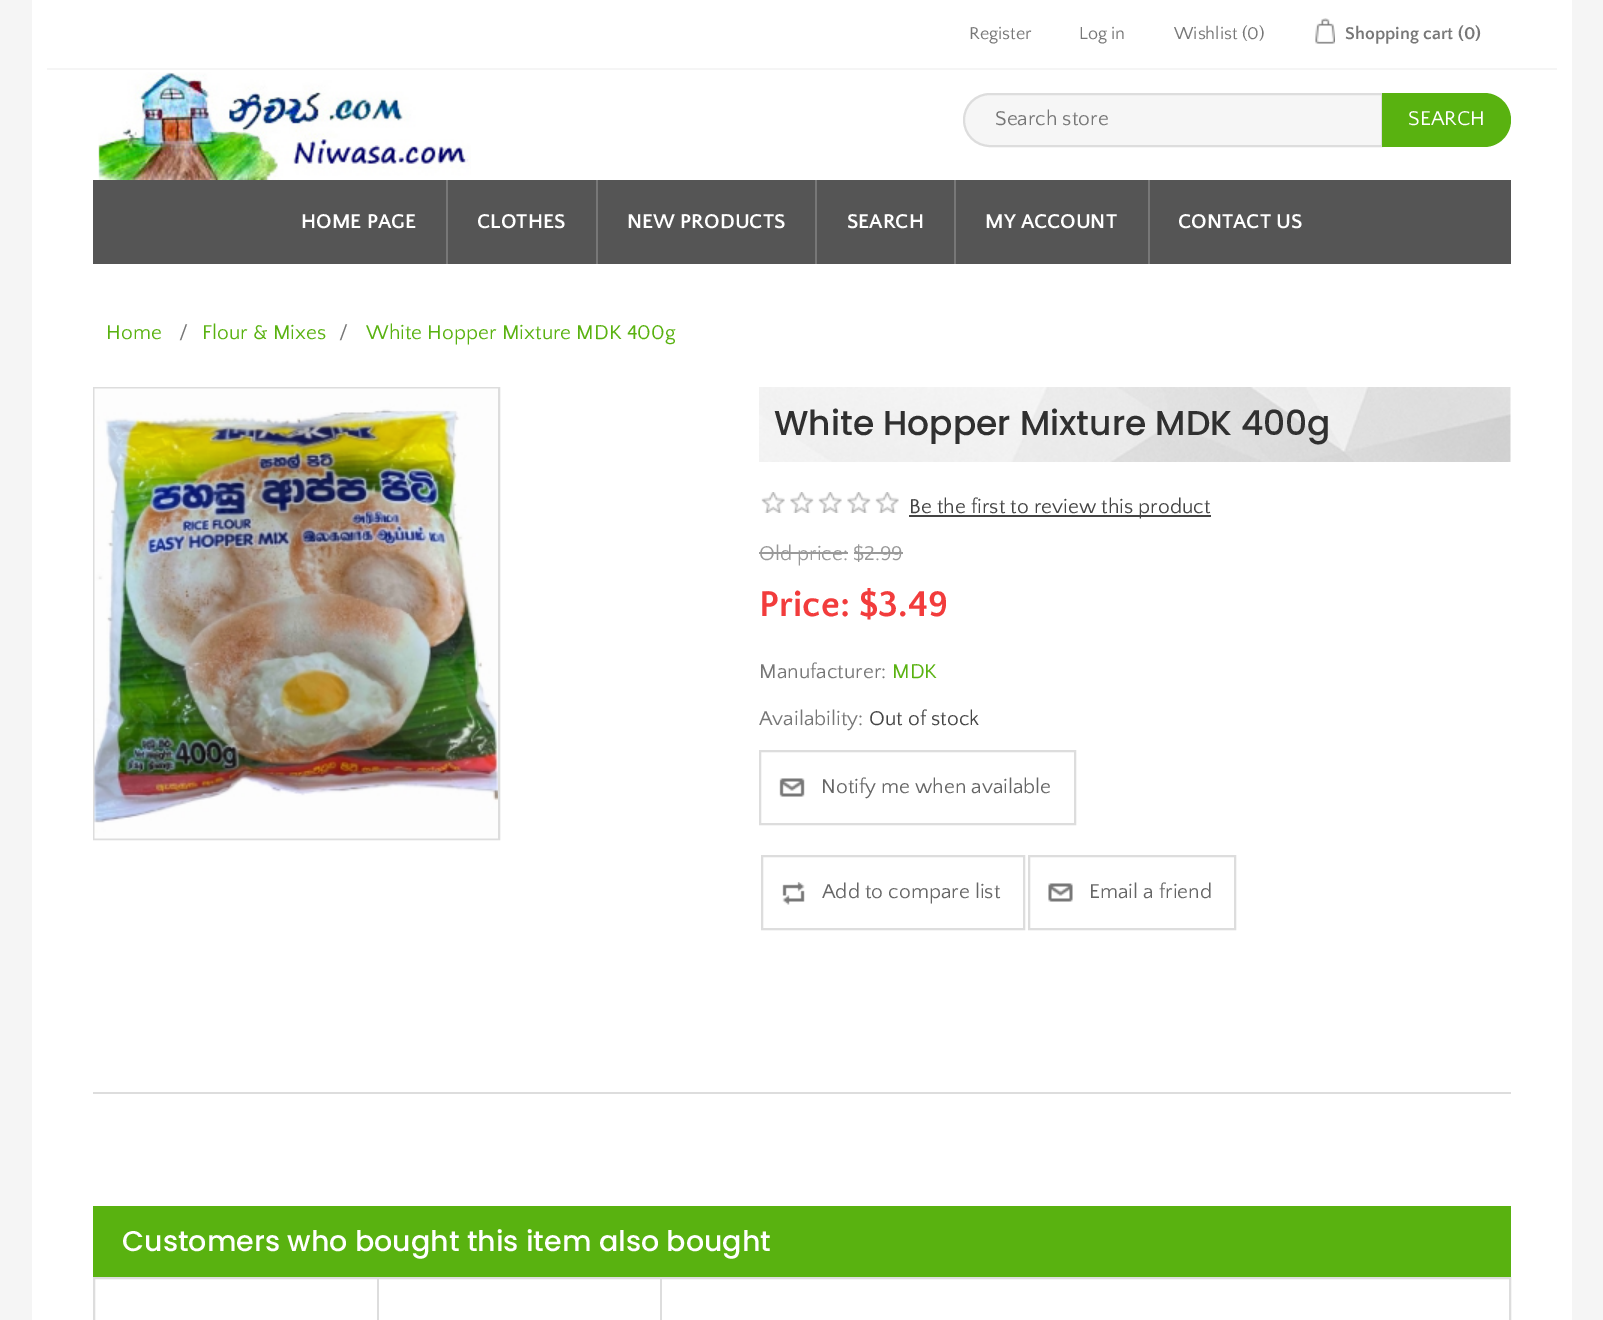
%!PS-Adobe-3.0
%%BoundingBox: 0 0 1603 1320
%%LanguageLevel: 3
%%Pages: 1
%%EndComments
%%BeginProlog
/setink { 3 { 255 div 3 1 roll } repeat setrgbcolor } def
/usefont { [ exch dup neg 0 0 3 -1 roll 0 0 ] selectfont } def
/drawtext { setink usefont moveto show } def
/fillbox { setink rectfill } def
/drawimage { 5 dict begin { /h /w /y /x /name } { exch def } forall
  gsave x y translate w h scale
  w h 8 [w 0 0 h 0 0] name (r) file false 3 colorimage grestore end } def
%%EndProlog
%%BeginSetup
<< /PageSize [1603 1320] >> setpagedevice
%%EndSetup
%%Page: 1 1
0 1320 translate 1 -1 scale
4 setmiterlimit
0 0 1603 1320 245 245 245 fillbox
32 0 1540 1320 255 255 255 fillbox
47 68 1510 2 245 245 245 fillbox
(Register) 969 39 /QuattrocentoSans-Regular 18 119 119 119 drawtext
(Log in) 1079 39 /QuattrocentoSans-Regular 18 119 119 119 drawtext
(Wishlist \(0\)) 1174 39 /QuattrocentoSans-Regular 18 119 119 119 drawtext
(assets/img1.rgb) 1315 18 20 26 drawimage
(Shopping cart \(0\)) 1345 39 /QuattrocentoSans-Bold 18 119 119 119 drawtext
(assets/img2.rgb) 98 72 373 108 drawimage
246 246 246 setink
990 94 moveto 1382 94 lineto 1382 146 lineto 990 146 lineto 975.5 146 964 134.5 964 120 curveto 964 105.5 975.5 94 990 94 curveto closepath gsave fill grestore
221 221 221 setink
2 setlinewidth
stroke
(Search store) 995 125 /QuattrocentoSans-Regular 21 119 119 119 drawtext
89 178 16 setink
1382 93 moveto 1484 93 lineto 1499 93 1511 105 1511 120 curveto 1511 135 1499 147 1484 147 curveto 1382 147 lineto closepath fill
(SEARCH) 1408 125 /QuattrocentoSans-Regular 21 255 255 255 drawtext
93 180 1418 84 85 85 85 fillbox
(HOME PAGE) 301 228 /QuattrocentoSans-Bold 21 255 255 255 drawtext
446 180 2 84 119 119 119 fillbox
(CLOTHES) 477 228 /QuattrocentoSans-Bold 21 255 255 255 drawtext
596 180 2 84 119 119 119 fillbox
(NEW PRODUCTS) 627 228 /QuattrocentoSans-Bold 21 255 255 255 drawtext
815 180 2 84 119 119 119 fillbox
(SEARCH) 847 228 /QuattrocentoSans-Bold 21 255 255 255 drawtext
954 180 2 84 119 119 119 fillbox
(MY ACCOUNT) 985 228 /QuattrocentoSans-Bold 21 255 255 255 drawtext
1148 180 2 84 119 119 119 fillbox
(CONTACT US) 1178 228 /QuattrocentoSans-Bold 21 255 255 255 drawtext
(Home) 106 339 /QuattrocentoSans-Regular 21 89 178 16 drawtext
(/) 179 339 /QuattrocentoSans-Regular 21 119 119 119 drawtext
(Flour & Mixes) 202 339 /QuattrocentoSans-Regular 21 89 178 16 drawtext
(/) 339 339 /QuattrocentoSans-Regular 21 119 119 119 drawtext
(White Hopper Mixture MDK 400g) 366 339 /QuattrocentoSans-Regular 21 89 178 16 drawtext
93 1092 1418 2 221 221 221 fillbox
94 388 405 451 rectstroke
(assets/img3.rgb) 94 388 404 451 drawimage
(assets/img4.rgb) 759 387 752 75 drawimage
(White Hopper Mixture MDK 400g) 774 435 /Poppins-Medium 34.5 48 48 48 drawtext
(assets/img5.rgb) 761 492 138 21 drawimage
909 515 302 2 68 68 68 fillbox
(Be the first to review this product) 909 513 /QuattrocentoSans-Regular 21 68 68 68 drawtext
(Old price: $2.99) 759 560 /QuattrocentoSans-Regular 21 153 153 153 drawtext
759 552 89 2 153 153 153 fillbox
854 552 49 2 153 153 153 fillbox
(Price: $3.49) 759 616 /QuattrocentoSans-Bold 37.5 242 60 60 drawtext
(Manufacturer:) 759 678 /QuattrocentoSans-Regular 21 119 119 119 drawtext
(MDK) 892 678 /QuattrocentoSans-Regular 21 89 178 16 drawtext
(Availability:) 759 725 /QuattrocentoSans-Regular 21 119 119 119 drawtext
(Out of stock) 869 725 /QuattrocentoSans-Regular 21 68 68 68 drawtext
(assets/img6.rgb) 779 778 26 19 drawimage
221 221 221 setink
760 751 315 73 rectstroke
(Notify me when available) 821 793 /QuattrocentoSans-Regular 21 102 102 102 drawtext
(assets/img7.rgb) 782 882 23 23 drawimage
221 221 221 setink
762 856 262 73 rectstroke
(Add to compare list) 822 898 /QuattrocentoSans-Regular 21 102 102 102 drawtext
(assets/img8.rgb) 1048 883 25 19 drawimage
221 221 221 setink
1029 856 206 73 rectstroke
(Email a friend) 1089 898 /QuattrocentoSans-Regular 21 102 102 102 drawtext
93 1206 1418 71 89 178 16 fillbox
(Customers who bought this item also bought) 122 1251 /Poppins-Medium 28.5 255 255 255 drawtext
221 221 221 setink
94 1278 1416 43 rectstroke
377 1278 2 42 221 221 221 fillbox
660 1278 2 42 221 221 221 fillbox
showpage
%%EOF
